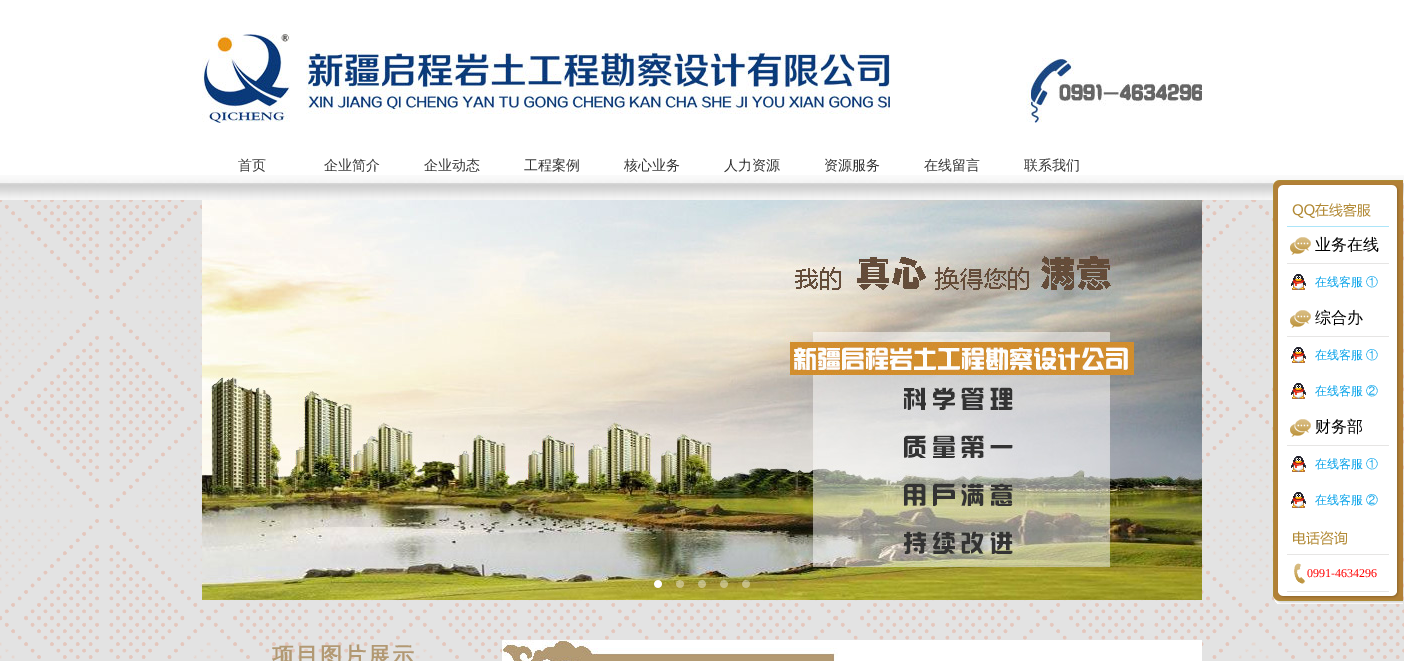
%!PS-Adobe-3.0
%%BoundingBox: 0 0 1404 661
%%LanguageLevel: 3
%%Pages: 1
%%EndComments
%%BeginProlog
/setink { 3 { 255 div 3 1 roll } repeat setrgbcolor } def
/usefont { [ exch dup neg 0 0 3 -1 roll 0 0 ] selectfont } def
/drawtext { setink usefont moveto show } def
/fillbox { setink rectfill } def
/drawimage { 5 dict begin { /h /w /y /x /name } { exch def } forall
  gsave x y translate w h scale
  w h 8 [w 0 0 h 0 0] name (r) file false 3 colorimage grestore end } def
%%EndProlog
%%BeginSetup
<< /PageSize [1404 661] >> setpagedevice
%%EndSetup
%%Page: 1 1
0 661 translate 1 -1 scale
4 setmiterlimit
0 0 1404 661 255 255 255 fillbox
(assets/img1.rgb) 0 175 1404 25 drawimage
(assets/img2.rgb) 202 34 1000 89 drawimage
(首页) 238 170 /WenQuanYiZenHei-Medium 14 51 51 51 drawtext
(企业简介) 324 170 /WenQuanYiZenHei-Medium 14 51 51 51 drawtext
(企业动态) 424 170 /WenQuanYiZenHei-Medium 14 51 51 51 drawtext
(工程案例) 524 170 /WenQuanYiZenHei-Medium 14 51 51 51 drawtext
(核心业务) 624 170 /WenQuanYiZenHei-Medium 14 51 51 51 drawtext
(人力资源) 724 170 /WenQuanYiZenHei-Medium 14 51 51 51 drawtext
(资源服务) 824 170 /WenQuanYiZenHei-Medium 14 51 51 51 drawtext
(在线留言) 924 170 /WenQuanYiZenHei-Medium 14 51 51 51 drawtext
(联系我们) 1024 170 /WenQuanYiZenHei-Medium 14 51 51 51 drawtext
(assets/img11.rgb) 0 200 1404 461 drawimage
(assets/img3.rgb) 1273 592 130 12 drawimage
(assets/img4.rgb) 1273 180 130 10 drawimage
(assets/img5.rgb) 1273 190 130 402 drawimage
1287 226 102 1 172 229 249 fillbox
(assets/img6.rgb) 1292 203 79 15 drawimage
1287 263 102 1 230 229 228 fillbox
(assets/img7.rgb) 1290 237 21 18 drawimage
(业务在线) 1315 250 /WenQuanYiZenHei-Medium 16 0 0 0 drawtext
(assets/img8.rgb) 1291 274 15 16 drawimage
/WenQuanYiZenHei-Medium 12 usefont
0 160 233 setink
1315 286 moveto -1 0 32 (在线客服 ①) widthshow
1287 336 102 1 230 229 228 fillbox
(assets/img7.rgb) 1290 310 21 18 drawimage
(综合办) 1315 323 /WenQuanYiZenHei-Medium 16 0 0 0 drawtext
(assets/img8.rgb) 1291 347 15 16 drawimage
/WenQuanYiZenHei-Medium 12 usefont
0 160 233 setink
1315 359 moveto -1 0 32 (在线客服 ①) widthshow
(assets/img8.rgb) 1291 383 15 16 drawimage
1315 395 moveto -1 0 32 (在线客服 ②) widthshow
1287 445 102 1 230 229 228 fillbox
(assets/img7.rgb) 1290 419 21 18 drawimage
(财务部) 1315 432 /WenQuanYiZenHei-Medium 16 0 0 0 drawtext
(assets/img8.rgb) 1291 456 15 16 drawimage
/WenQuanYiZenHei-Medium 12 usefont
0 160 233 setink
1315 468 moveto -1 0 32 (在线客服 ①) widthshow
(assets/img8.rgb) 1291 492 15 16 drawimage
1315 504 moveto -1 0 32 (在线客服 ②) widthshow
1287 554 102 1 230 229 228 fillbox
(assets/img9.rgb) 1293 531 55 14 drawimage
1287 591 102 1 230 229 228 fillbox
(assets/img10.rgb) 1294 563 12 21 drawimage
(0991-4634296) 1307 577 /LiberationSerif-Regular 12 255 0 0 drawtext
(assets/img12.rgb) 202 200 1000 400 drawimage
(assets/img13.rgb) 654 580 8 8 drawimage
(assets/img14.rgb) 676 580 8 8 drawimage
(assets/img15.rgb) 698 580 8 8 drawimage
(assets/img16.rgb) 720 580 8 8 drawimage
(assets/img17.rgb) 742 580 8 8 drawimage
/WenQuanYiZenHei-Bold 22 usefont
178 153 115 setink
272 663 moveto 2 0 (项目图片展示) ashow
838 640 364 21 255 255 255 fillbox
(assets/img18.rgb) 502 640 336 21 drawimage
showpage
%%EOF
